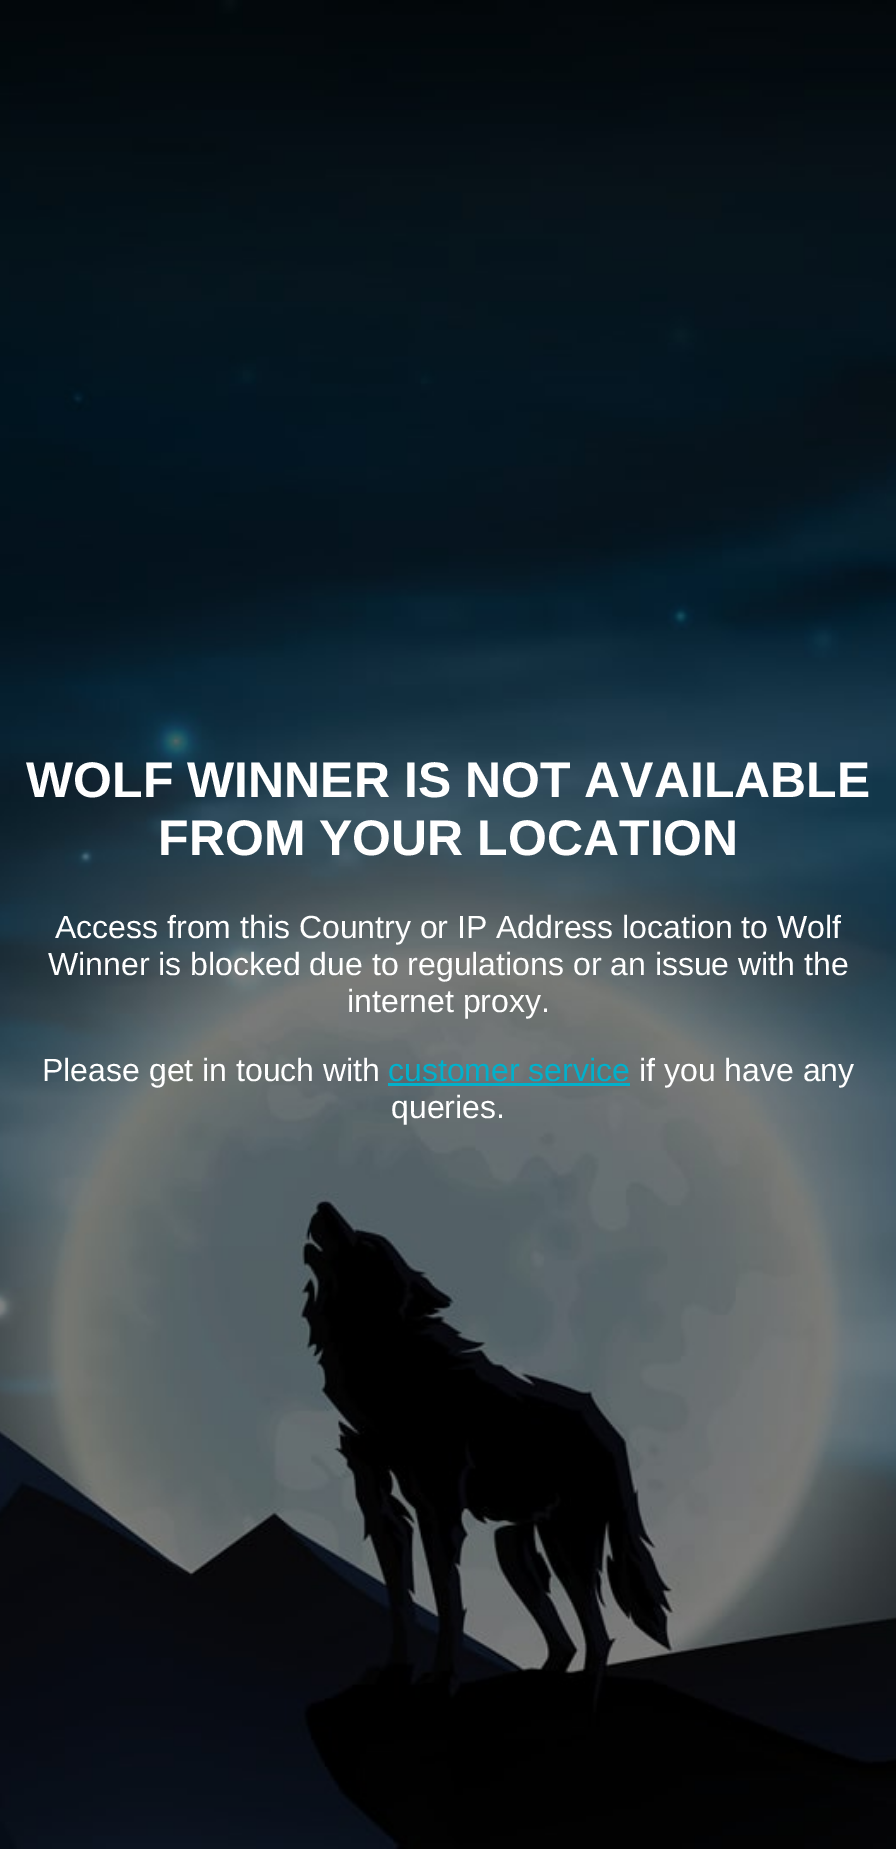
%!PS-Adobe-3.0
%%BoundingBox: 0 0 896 1849
%%LanguageLevel: 3
%%Pages: 1
%%EndComments
%%BeginProlog
/setink { 3 { 255 div 3 1 roll } repeat setrgbcolor } def
/usefont { [ exch dup neg 0 0 3 -1 roll 0 0 ] selectfont } def
/drawtext { setink usefont moveto show } def
/fillbox { setink rectfill } def
/drawimage { 5 dict begin { /h /w /y /x /name } { exch def } forall
  gsave x y translate w h scale
  w h 8 [w 0 0 h 0 0] name (r) file false 3 colorimage grestore end } def
%%EndProlog
%%BeginSetup
<< /PageSize [896 1849] >> setpagedevice
%%EndSetup
%%Page: 1 1
0 1849 translate 1 -1 scale
4 setmiterlimit
0 0 896 1849 255 255 255 fillbox
(assets/img1.rgb) 0 0 896 1849 drawimage
(WOLF WINNER IS NOT AVAILABLE) 26 797 /LiberationSans-Bold 50 255 255 255 drawtext
(FROM YOUR LOCATION) 158 855 /LiberationSans-Bold 50 255 255 255 drawtext
(Access from this Country or IP Address location to Wolf) 55 938 /LiberationSans-Regular 32 255 255 255 drawtext
(Winner is blocked due to regulations or an issue with the) 48 975 /LiberationSans-Regular 32 255 255 255 drawtext
(internet proxy.) 347 1012 /LiberationSans-Regular 32 255 255 255 drawtext
(Please get in touch with) 42 1081 /LiberationSans-Regular 32 255 255 255 drawtext
(customer service) 388 1081 /LiberationSans-Regular 32 2 176 203 drawtext
388 1083 242 3 2 176 203 fillbox
(if you have any) 639 1081 /LiberationSans-Regular 32 255 255 255 drawtext
(queries.) 391 1118 /LiberationSans-Regular 32 255 255 255 drawtext
showpage
%%EOF
